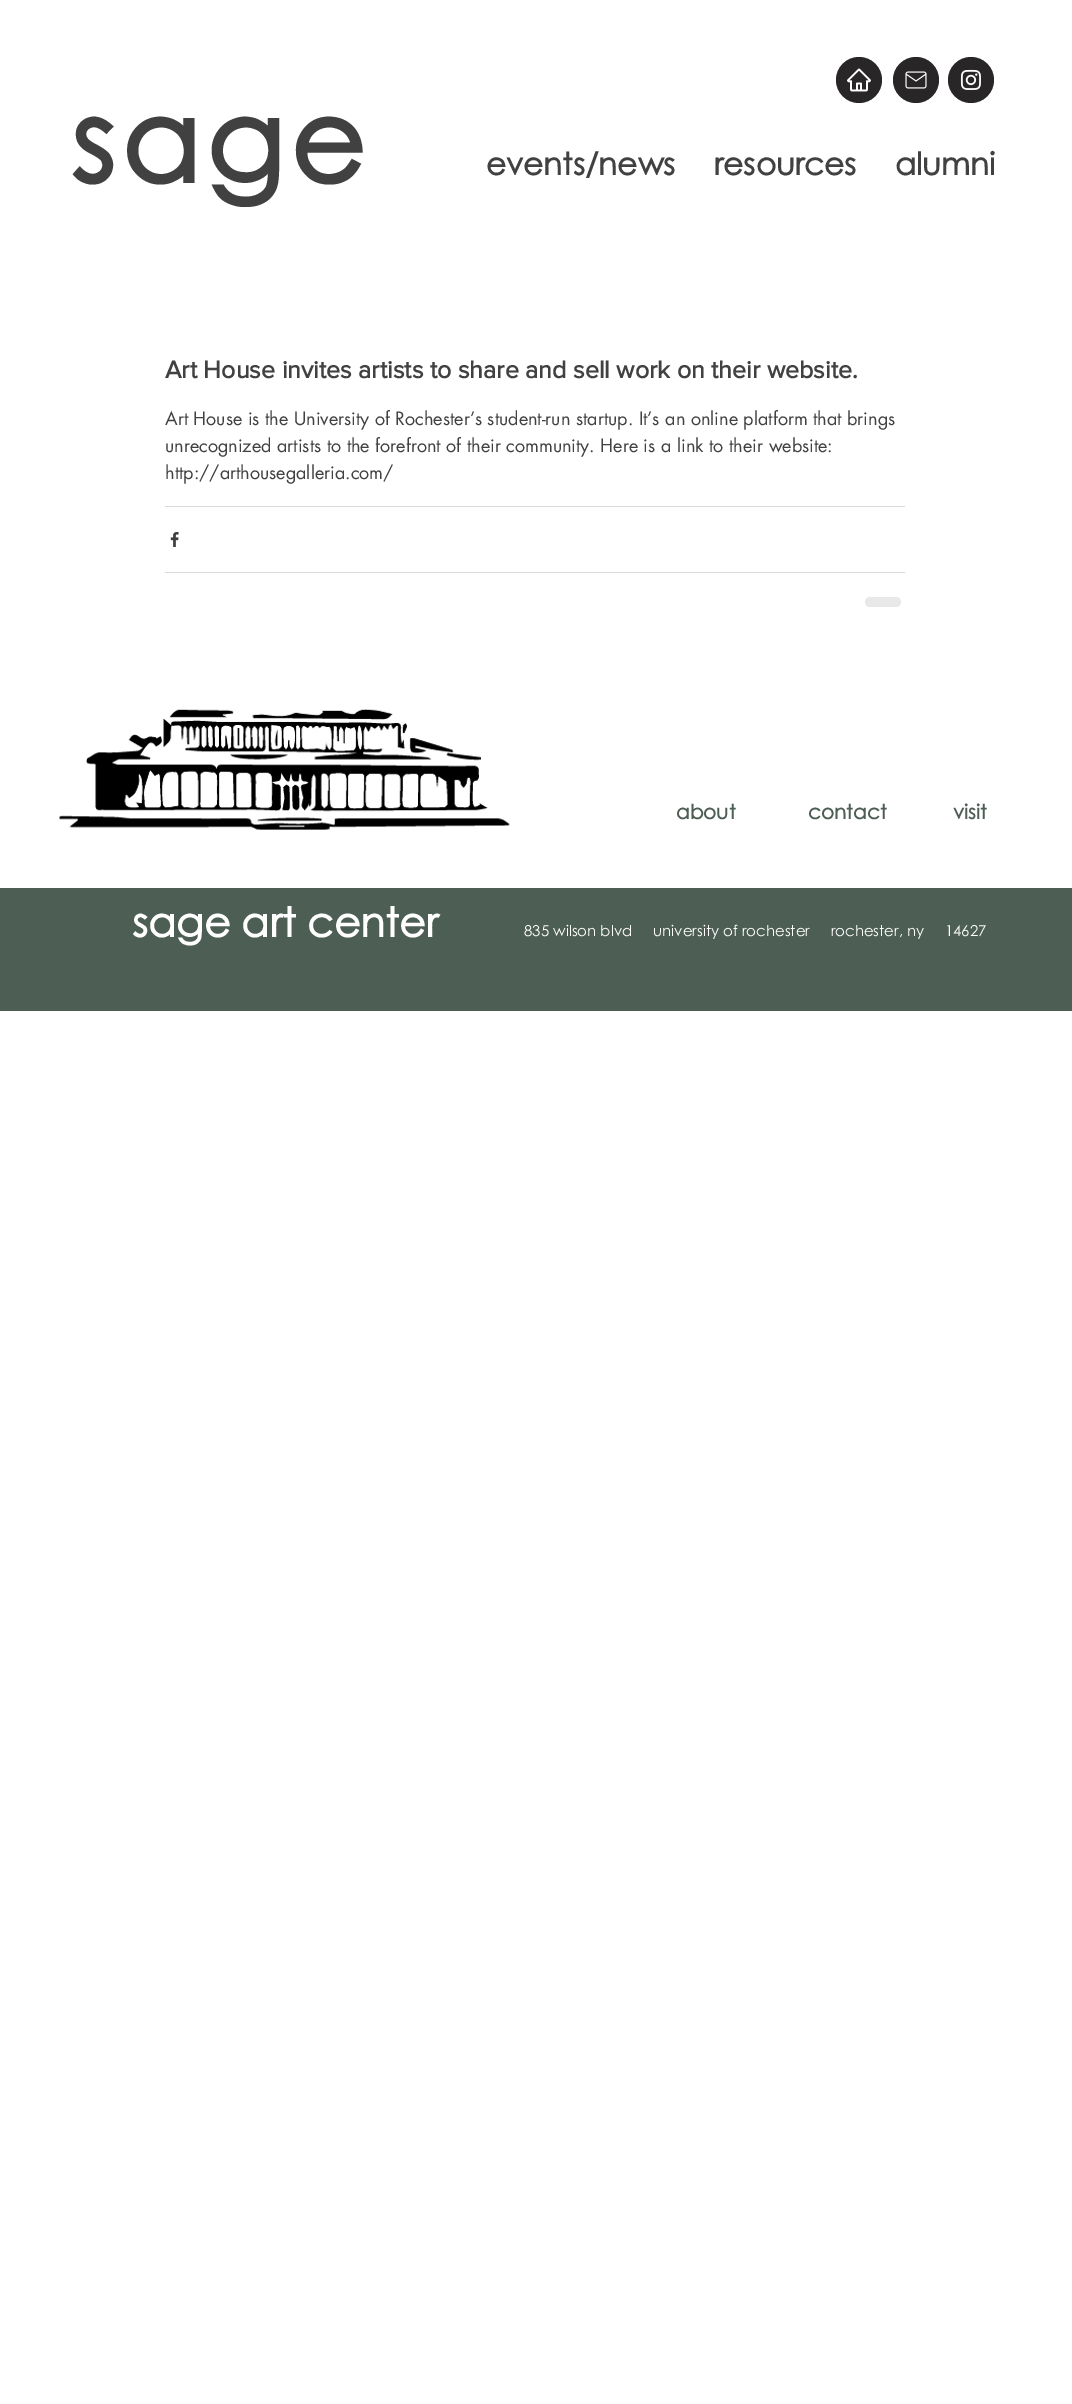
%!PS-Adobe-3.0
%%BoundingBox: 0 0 1072 2404
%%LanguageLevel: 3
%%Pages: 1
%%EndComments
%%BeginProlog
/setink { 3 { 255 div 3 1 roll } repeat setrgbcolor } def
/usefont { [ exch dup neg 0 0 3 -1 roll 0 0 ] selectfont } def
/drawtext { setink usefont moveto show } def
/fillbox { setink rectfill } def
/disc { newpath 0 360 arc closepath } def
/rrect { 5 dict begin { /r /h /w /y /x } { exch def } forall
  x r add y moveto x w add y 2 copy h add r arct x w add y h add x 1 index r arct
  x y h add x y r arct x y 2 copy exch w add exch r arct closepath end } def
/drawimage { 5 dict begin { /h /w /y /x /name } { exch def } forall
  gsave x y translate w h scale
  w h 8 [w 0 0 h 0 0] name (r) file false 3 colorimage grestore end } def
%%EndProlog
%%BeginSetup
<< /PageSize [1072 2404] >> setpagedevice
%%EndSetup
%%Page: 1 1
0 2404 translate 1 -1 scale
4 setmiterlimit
0 0 1072 2404 255 255 255 fillbox
40 38 38 setink
859 80 23 disc fill
(assets/img1.rgb) 847 68 24 24 drawimage
916 80 23 disc fill
(assets/img2.rgb) 905 71 22 18 drawimage
971 80 23 disc fill
(assets/img3.rgb) 960 69 21 21 drawimage
/CenturyGothic-Bold 116 usefont
65 65 65 setink
70 183 moveto 6 0 (sage) ashow
(events/news) 486 175 /CenturyGothic-Bold 31 65 65 65 drawtext
(resources) 714 175 /CenturyGothic-Bold 31 65 65 65 drawtext
(alumni) 895 175 /CenturyGothic-Bold 31 65 65 65 drawtext
(Art House invites artists to share and sell work on their website.) 165 378 /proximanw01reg-Bold 25 65 65 65 drawtext
(Art House is the University of Rochester’s student-run startup. It’s an online platform that brings) 165 425 /futura-Regular 18 65 65 65 drawtext
(unrecognized artists to the forefront of their community. Here is a link to their website:) 165 452 /futura-Regular 18 65 65 65 drawtext
(http://arthousegalleria.com/) 165 479 /futura-Regular 18 65 65 65 drawtext
165 506 740 1 217 217 217 fillbox
(assets/img4.rgb) 170 532 9 15 drawimage
165 572 740 1 217 217 217 fillbox
232 232 232 setink
865 597 36 10 5 rrect fill
(assets/img5.rgb) 59 709 451 121 drawimage
(about) 676 819 /CenturyGothic-Bold 20 77 94 84 drawtext
(contact) 808 819 /CenturyGothic-Bold 20 77 94 84 drawtext
(visit) 953 819 /CenturyGothic-Bold 20 77 94 84 drawtext
0 888 1072 123 77 94 84 fillbox
(sage art center) 132 937 /CenturyGothic-Bold 41 255 255 255 drawtext
(835 wilson blvd     university of rochester     rochester, ny     14627) 524 936 /CenturyGothic-Regular 15 255 255 255 drawtext
showpage
%%EOF
